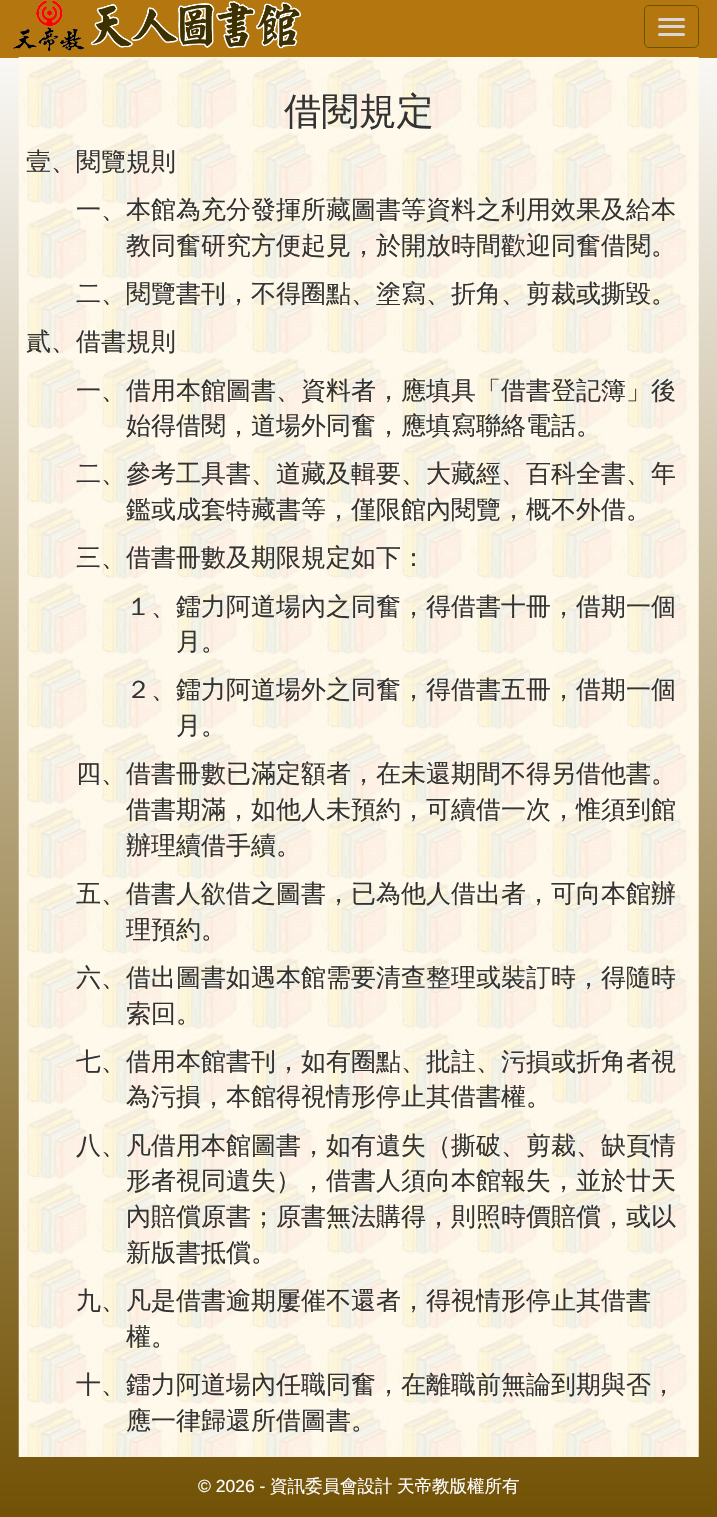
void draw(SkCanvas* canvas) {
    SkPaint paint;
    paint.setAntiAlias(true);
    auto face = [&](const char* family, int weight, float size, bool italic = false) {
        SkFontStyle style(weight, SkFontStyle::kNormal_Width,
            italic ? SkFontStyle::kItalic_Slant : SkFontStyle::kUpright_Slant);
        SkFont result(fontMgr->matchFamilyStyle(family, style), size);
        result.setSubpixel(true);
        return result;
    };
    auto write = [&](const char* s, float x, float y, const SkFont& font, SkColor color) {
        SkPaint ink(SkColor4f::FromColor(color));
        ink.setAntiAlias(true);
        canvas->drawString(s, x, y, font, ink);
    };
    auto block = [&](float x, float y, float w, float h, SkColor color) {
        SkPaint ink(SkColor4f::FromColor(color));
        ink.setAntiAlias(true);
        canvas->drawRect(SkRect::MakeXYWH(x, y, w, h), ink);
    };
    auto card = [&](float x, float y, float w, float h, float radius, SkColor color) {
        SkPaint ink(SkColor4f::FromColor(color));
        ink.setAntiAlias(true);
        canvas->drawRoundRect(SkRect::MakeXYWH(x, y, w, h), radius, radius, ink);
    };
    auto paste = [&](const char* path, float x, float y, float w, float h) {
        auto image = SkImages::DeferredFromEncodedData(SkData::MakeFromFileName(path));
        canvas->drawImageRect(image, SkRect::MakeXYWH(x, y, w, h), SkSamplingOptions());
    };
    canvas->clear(SK_ColorWHITE);
    {
        const SkColor colors[] = {SK_ColorWHITE, SkColorSetRGB(113, 81, 4)};
        const float stops[] = {0, 1};
        const SkPoint ends[] = {{359, -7.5f}, {359, 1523}};
        paint.setShader(SkGradientShader::MakeLinear(ends, colors, stops, 2, SkTileMode::kClamp));
        paint.setAlpha(255);
    }
    canvas->drawRect(SkRect::MakeXYWH(0, 58, 717, 1459), paint);
    block(0, 0, 717, 58, SkColorSetRGB(180, 118, 15));
    paste("pic1.png", 12, 0, 289, 52);
    paint.setStyle(SkPaint::kStroke_Style);
    paint.setStrokeWidth(1);
    paint.setShader(nullptr);
    paint.setColor(SkColorSetRGB(106, 84, 0));
    canvas->drawRoundRect(SkRect::MakeXYWH(644.5f, 5.5f, 54, 42), 4.5f, 4.5f, paint);
    card(658, 18, 27, 3, 1.5f, SkColorSetRGB(215, 215, 217));
    card(658, 25, 27, 3, 1.5f, SkColorSetRGB(215, 215, 217));
    card(658, 33, 27, 3, 1.5f, SkColorSetRGB(215, 215, 217));
    paste("pic2.png", 18, 57, 681, 1400);
    auto kFont1 = face("WenQuanYi Zen Hei", 500, 37.5f);
    write("借閱規定", 284, 124, kFont1, SkColorSetRGB(51, 51, 51));
    auto kFont2 = face("WenQuanYi Zen Hei", 500, 25);
    write("壹、閱覽規則", 26, 170, kFont2, SkColorSetRGB(51, 51, 51));
    write("一、本館為充分發揮所藏圖書等資料之利用效果及給本", 76, 218, kFont2, SkColorSetRGB(51, 51, 51));
    write("教同奮研究方便起見，於開放時間歡迎同奮借閱。", 126, 254, kFont2, SkColorSetRGB(51, 51, 51));
    write("二、閱覽書刊，不得圈點、塗寫、折角、剪裁或撕毀。", 76, 302, kFont2, SkColorSetRGB(51, 51, 51));
    write("貳、借書規則", 26, 350, kFont2, SkColorSetRGB(51, 51, 51));
    write("一、借用本館圖書、資料者，應填具「借書登記簿」後", 76, 399, kFont2, SkColorSetRGB(51, 51, 51));
    write("始得借閱，道場外同奮，應填寫聯絡電話。", 126, 434, kFont2, SkColorSetRGB(51, 51, 51));
    write("二、參考工具書、道藏及輯要、大藏經、百科全書、年", 76, 482, kFont2, SkColorSetRGB(51, 51, 51));
    write("鑑或成套特藏書等，僅限館內閱覽，概不外借。", 126, 518, kFont2, SkColorSetRGB(51, 51, 51));
    write("三、借書冊數及期限規定如下：", 76, 566, kFont2, SkColorSetRGB(51, 51, 51));
    write("１、鐳力阿道場內之同奮，得借書十冊，借期一個", 126, 615, kFont2, SkColorSetRGB(51, 51, 51));
    write("月。", 176, 650, kFont2, SkColorSetRGB(51, 51, 51));
    write("２、鐳力阿道場外之同奮，得借書五冊，借期一個", 126, 698, kFont2, SkColorSetRGB(51, 51, 51));
    write("月。", 176, 734, kFont2, SkColorSetRGB(51, 51, 51));
    write("四、借書冊數已滿定額者，在未還期間不得另借他書。", 76, 782, kFont2, SkColorSetRGB(51, 51, 51));
    write("借書期滿，如他人未預約，可續借一次，惟須到館", 126, 818, kFont2, SkColorSetRGB(51, 51, 51));
    write("辦理續借手續。", 126, 854, kFont2, SkColorSetRGB(51, 51, 51));
    write("五、借書人欲借之圖書，已為他人借出者，可向本館辦", 76, 902, kFont2, SkColorSetRGB(51, 51, 51));
    write("理預約。", 126, 938, kFont2, SkColorSetRGB(51, 51, 51));
    write("六、借出圖書如遇本館需要清查整理或裝訂時，得隨時", 76, 986, kFont2, SkColorSetRGB(51, 51, 51));
    write("索回。", 126, 1022, kFont2, SkColorSetRGB(51, 51, 51));
    write("七、借用本館書刊，如有圈點、批註、污損或折角者視", 76, 1070, kFont2, SkColorSetRGB(51, 51, 51));
    write("為污損，本館得視情形停止其借書權。", 126, 1105, kFont2, SkColorSetRGB(51, 51, 51));
    write("八、凡借用本館圖書，如有遺失（撕破、剪裁、缺頁情", 76, 1154, kFont2, SkColorSetRGB(51, 51, 51));
    write("形者視同遺失），借書人須向本館報失，並於廿天", 126, 1189, kFont2, SkColorSetRGB(51, 51, 51));
    write("內賠償原書；原書無法購得，則照時價賠償，或以", 126, 1225, kFont2, SkColorSetRGB(51, 51, 51));
    write("新版書抵償。", 126, 1261, kFont2, SkColorSetRGB(51, 51, 51));
    write("九、凡是借書逾期屢催不還者，得視情形停止其借書", 76, 1309, kFont2, SkColorSetRGB(51, 51, 51));
    write("權。", 126, 1345, kFont2, SkColorSetRGB(51, 51, 51));
    write("十、鐳力阿道場內任職同奮，在離職前無論到期與否，", 76, 1393, kFont2, SkColorSetRGB(51, 51, 51));
    write("應一律歸還所借圖書。", 126, 1429, kFont2, SkColorSetRGB(51, 51, 51));
    auto kFont3 = face("Liberation Sans", 400, 17.5f);
    write("© 2026 -", 198, 1492, kFont3, SK_ColorWHITE);
    auto kFont4 = face("WenQuanYi Zen Hei", 500, 17.5f);
    write("資訊委員會設計", 270, 1492, kFont4, SK_ColorWHITE);
    write("天帝教版權所有", 397, 1492, kFont4, SK_ColorWHITE);
}
